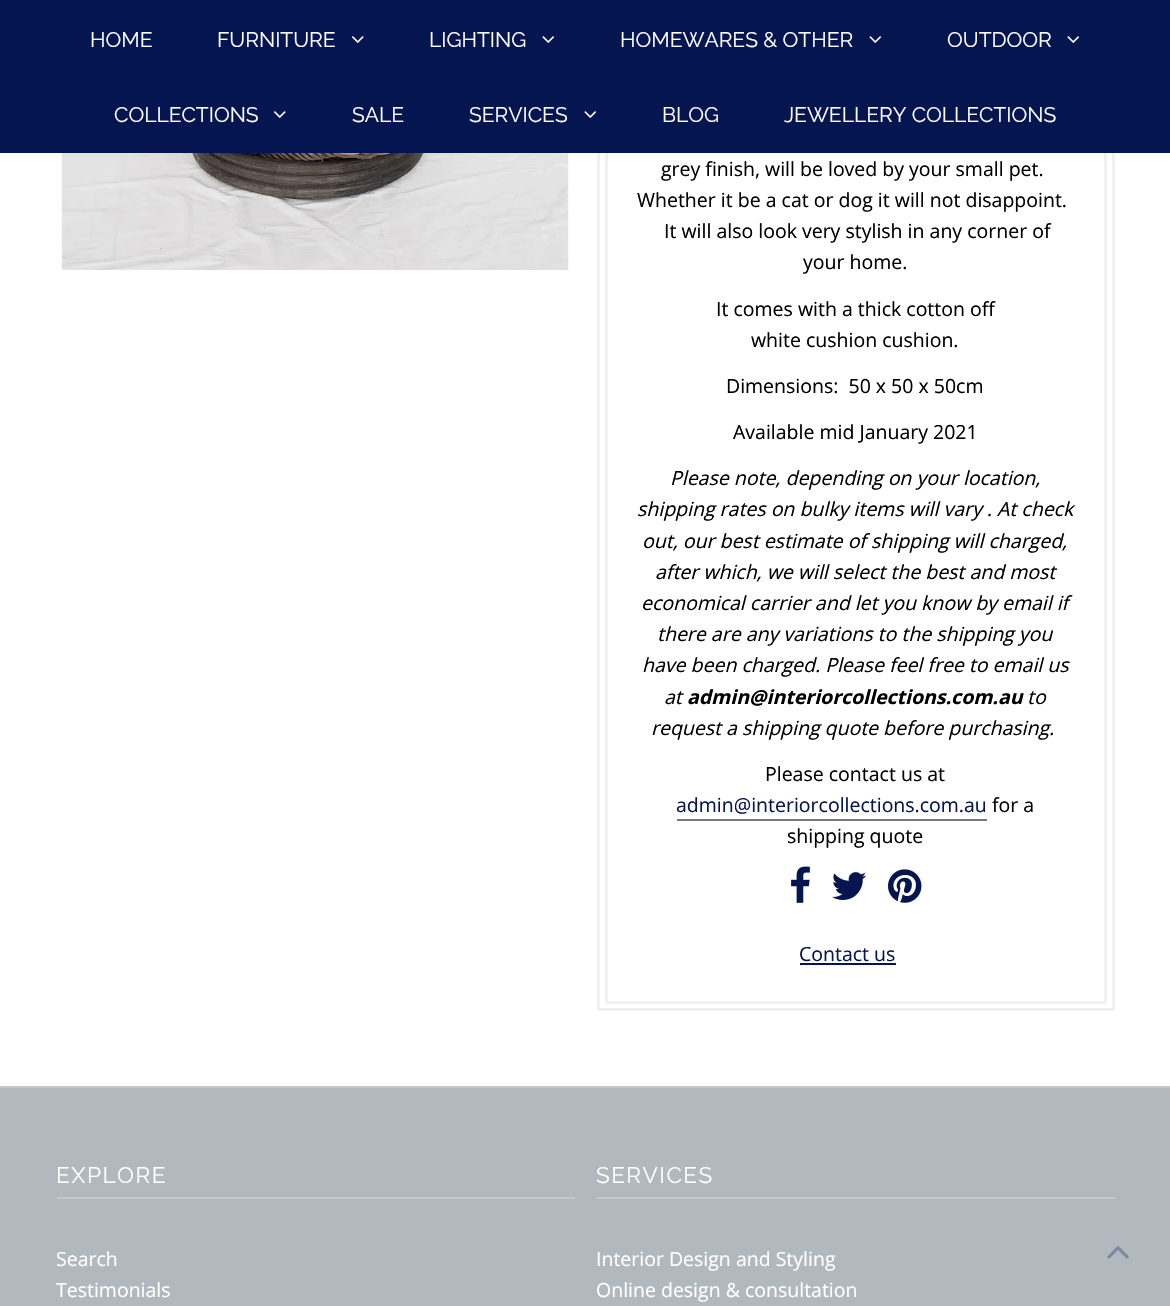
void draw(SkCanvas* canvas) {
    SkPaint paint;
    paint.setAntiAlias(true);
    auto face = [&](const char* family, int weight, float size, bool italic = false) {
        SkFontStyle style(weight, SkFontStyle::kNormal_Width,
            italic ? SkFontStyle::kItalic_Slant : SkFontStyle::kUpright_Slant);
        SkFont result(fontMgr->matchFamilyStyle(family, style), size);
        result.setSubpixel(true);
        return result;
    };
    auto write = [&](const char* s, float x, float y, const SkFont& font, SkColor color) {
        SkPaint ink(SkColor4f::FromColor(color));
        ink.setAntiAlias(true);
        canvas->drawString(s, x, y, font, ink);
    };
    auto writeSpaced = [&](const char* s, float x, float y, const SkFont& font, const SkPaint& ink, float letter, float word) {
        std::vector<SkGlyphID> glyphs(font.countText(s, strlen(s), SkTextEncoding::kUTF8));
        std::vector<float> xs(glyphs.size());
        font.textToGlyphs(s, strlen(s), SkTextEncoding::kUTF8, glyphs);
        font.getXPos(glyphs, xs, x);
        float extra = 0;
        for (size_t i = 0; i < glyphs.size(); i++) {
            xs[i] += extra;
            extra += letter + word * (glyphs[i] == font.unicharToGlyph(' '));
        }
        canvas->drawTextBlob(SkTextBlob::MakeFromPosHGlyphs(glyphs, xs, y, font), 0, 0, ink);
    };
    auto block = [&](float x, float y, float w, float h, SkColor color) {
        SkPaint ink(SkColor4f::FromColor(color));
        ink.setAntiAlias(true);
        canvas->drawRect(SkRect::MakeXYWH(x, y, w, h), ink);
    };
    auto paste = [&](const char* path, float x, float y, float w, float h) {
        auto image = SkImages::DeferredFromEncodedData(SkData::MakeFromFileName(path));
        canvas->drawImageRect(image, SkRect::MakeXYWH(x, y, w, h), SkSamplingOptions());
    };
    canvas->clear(SK_ColorWHITE);
    paint.setStyle(SkPaint::kStroke_Style);
    paint.setStrokeWidth(3);
    paint.setColor(SkColorSetRGB(240, 240, 240));
    canvas->drawRect(SkRect::MakeXYWH(598.5f, -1.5f, 515, 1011), paint);
    canvas->drawRect(SkRect::MakeXYWH(606.5f, -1.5f, 499, 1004), paint);
    block(0, 0, 1170, 153, SkColorSetRGB(5, 21, 80));
    auto kFont1 = face("Raleway", 400, 21);
    write("HOME", 90, 47, kFont1, SK_ColorWHITE);
    write("FURNITURE", 217, 47, kFont1, SK_ColorWHITE);
    paste("pic1.png", 352, 36, 12, 7);
    write("LIGHTING", 429, 47, kFont1, SK_ColorWHITE);
    paste("pic2.png", 542, 36, 12, 7);
    write("HOMEWARES & OTHER", 620, 47, kFont1, SK_ColorWHITE);
    paste("pic2.png", 869, 36, 12, 7);
    write("OUTDOOR", 947, 47, kFont1, SK_ColorWHITE);
    paste("pic2.png", 1067, 36, 12, 7);
    write("COLLECTIONS", 114, 122, kFont1, SK_ColorWHITE);
    paste("pic1.png", 274, 111, 12, 7);
    write("SALE", 352, 122, kFont1, SK_ColorWHITE);
    write("SERVICES", 469, 122, kFont1, SK_ColorWHITE);
    paste("pic2.png", 584, 111, 12, 7);
    write("BLOG", 662, 122, kFont1, SK_ColorWHITE);
    write("JEWELLERY COLLECTIONS", 784, 122, kFont1, SK_ColorWHITE);
    paste("pic3.png", 61, 153, 508, 117);
    auto kFont2 = face("Open Sans", 400, 19.5f);
    write("grey finish, will be loved by your small pet.", 661, 176, kFont2, SK_ColorBLACK);
    write("Whether it be a cat or dog it will not disappoint.", 637, 207, kFont2, SK_ColorBLACK);
    write("It will also look very stylish in any corner of", 664, 238, kFont2, SK_ColorBLACK);
    write("your home.", 803, 269, kFont2, SK_ColorBLACK);
    write("It comes with a thick cotton off", 716, 316, kFont2, SK_ColorBLACK);
    write("white cushion cushion.", 751, 347, kFont2, SK_ColorBLACK);
    write("Dimensions:  50 x 50 x 50cm", 726, 393, kFont2, SK_ColorBLACK);
    write("Available mid January 2021", 733, 439, kFont2, SK_ColorBLACK);
    auto kFont3 = face("Open Sans", 400, 19.5f, true);
    write("Please note, depending on your location,", 670, 485, kFont3, SK_ColorBLACK);
    write("shipping rates on bulky items will vary . At check", 637, 516, kFont3, SK_ColorBLACK);
    write("out, our best estimate of shipping will charged,", 642, 548, kFont3, SK_ColorBLACK);
    write("after which, we will select the best and most", 655, 579, kFont3, SK_ColorBLACK);
    write("economical carrier and let you know by email if", 641, 610, kFont3, SK_ColorBLACK);
    write("there are any variations to the shipping you", 657, 641, kFont3, SK_ColorBLACK);
    write("have been charged. Please feel free to email us", 642, 672, kFont3, SK_ColorBLACK);
    write("at", 664, 704, kFont3, SK_ColorBLACK);
    auto kFont4 = face("Open Sans", 700, 19.5f, true);
    write("admin@interiorcollections.com.au", 687, 704, kFont4, SK_ColorBLACK);
    write("to", 1027, 704, kFont3, SK_ColorBLACK);
    write("request a shipping quote before purchasing.", 651, 735, kFont3, SK_ColorBLACK);
    write("Please contact us at", 765, 781, kFont2, SK_ColorBLACK);
    write("admin@interiorcollections.com.au", 676, 812, kFont2, SkColorSetRGB(5, 21, 80));
    block(677, 819, 310, 2, SkColorSetRGB(119, 119, 119));
    write("for a", 992, 812, kFont2, SK_ColorBLACK);
    write("shipping quote", 787, 843, kFont2, SK_ColorBLACK);
    paste("pic4.png", 791, 866, 19, 37);
    paste("pic5.png", 832, 872, 35, 28);
    paste("pic6.png", 888, 869, 34, 34);
    write("Contact us", 799, 961, kFont2, SkColorSetRGB(5, 21, 80));
    block(800, 963, 96, 2, SkColorSetRGB(5, 21, 80));
    block(0, 1088, 1170, 218, SkColorSetRGB(177, 184, 190));
    block(0, 1086, 1170, 2, SkColorSetRGB(196, 201, 204));
    block(57, 1197, 518, 2, SkColorSetRGB(196, 201, 204));
    auto kFont5 = face("Raleway", 400, 22.5f);
    paint.setStyle(SkPaint::kFill_Style);
    paint.setColor(SK_ColorWHITE);
    writeSpaced("EXPLORE", 56, 1183, kFont5, paint, 1.5f, 0);
    write("Search", 56, 1266, kFont2, SK_ColorWHITE);
    write("Testimonials", 56, 1297, kFont2, SK_ColorWHITE);
    block(597, 1197, 518, 2, SkColorSetRGB(196, 201, 204));
    writeSpaced("SERVICES", 596, 1183, kFont5, paint, 1.5f, 0);
    write("Interior Design and Styling", 596, 1266, kFont2, SK_ColorWHITE);
    write("Online design & consultation", 596, 1297, kFont2, SK_ColorWHITE);
    paste("pic7.png", 1107, 1246, 22, 13);
}
